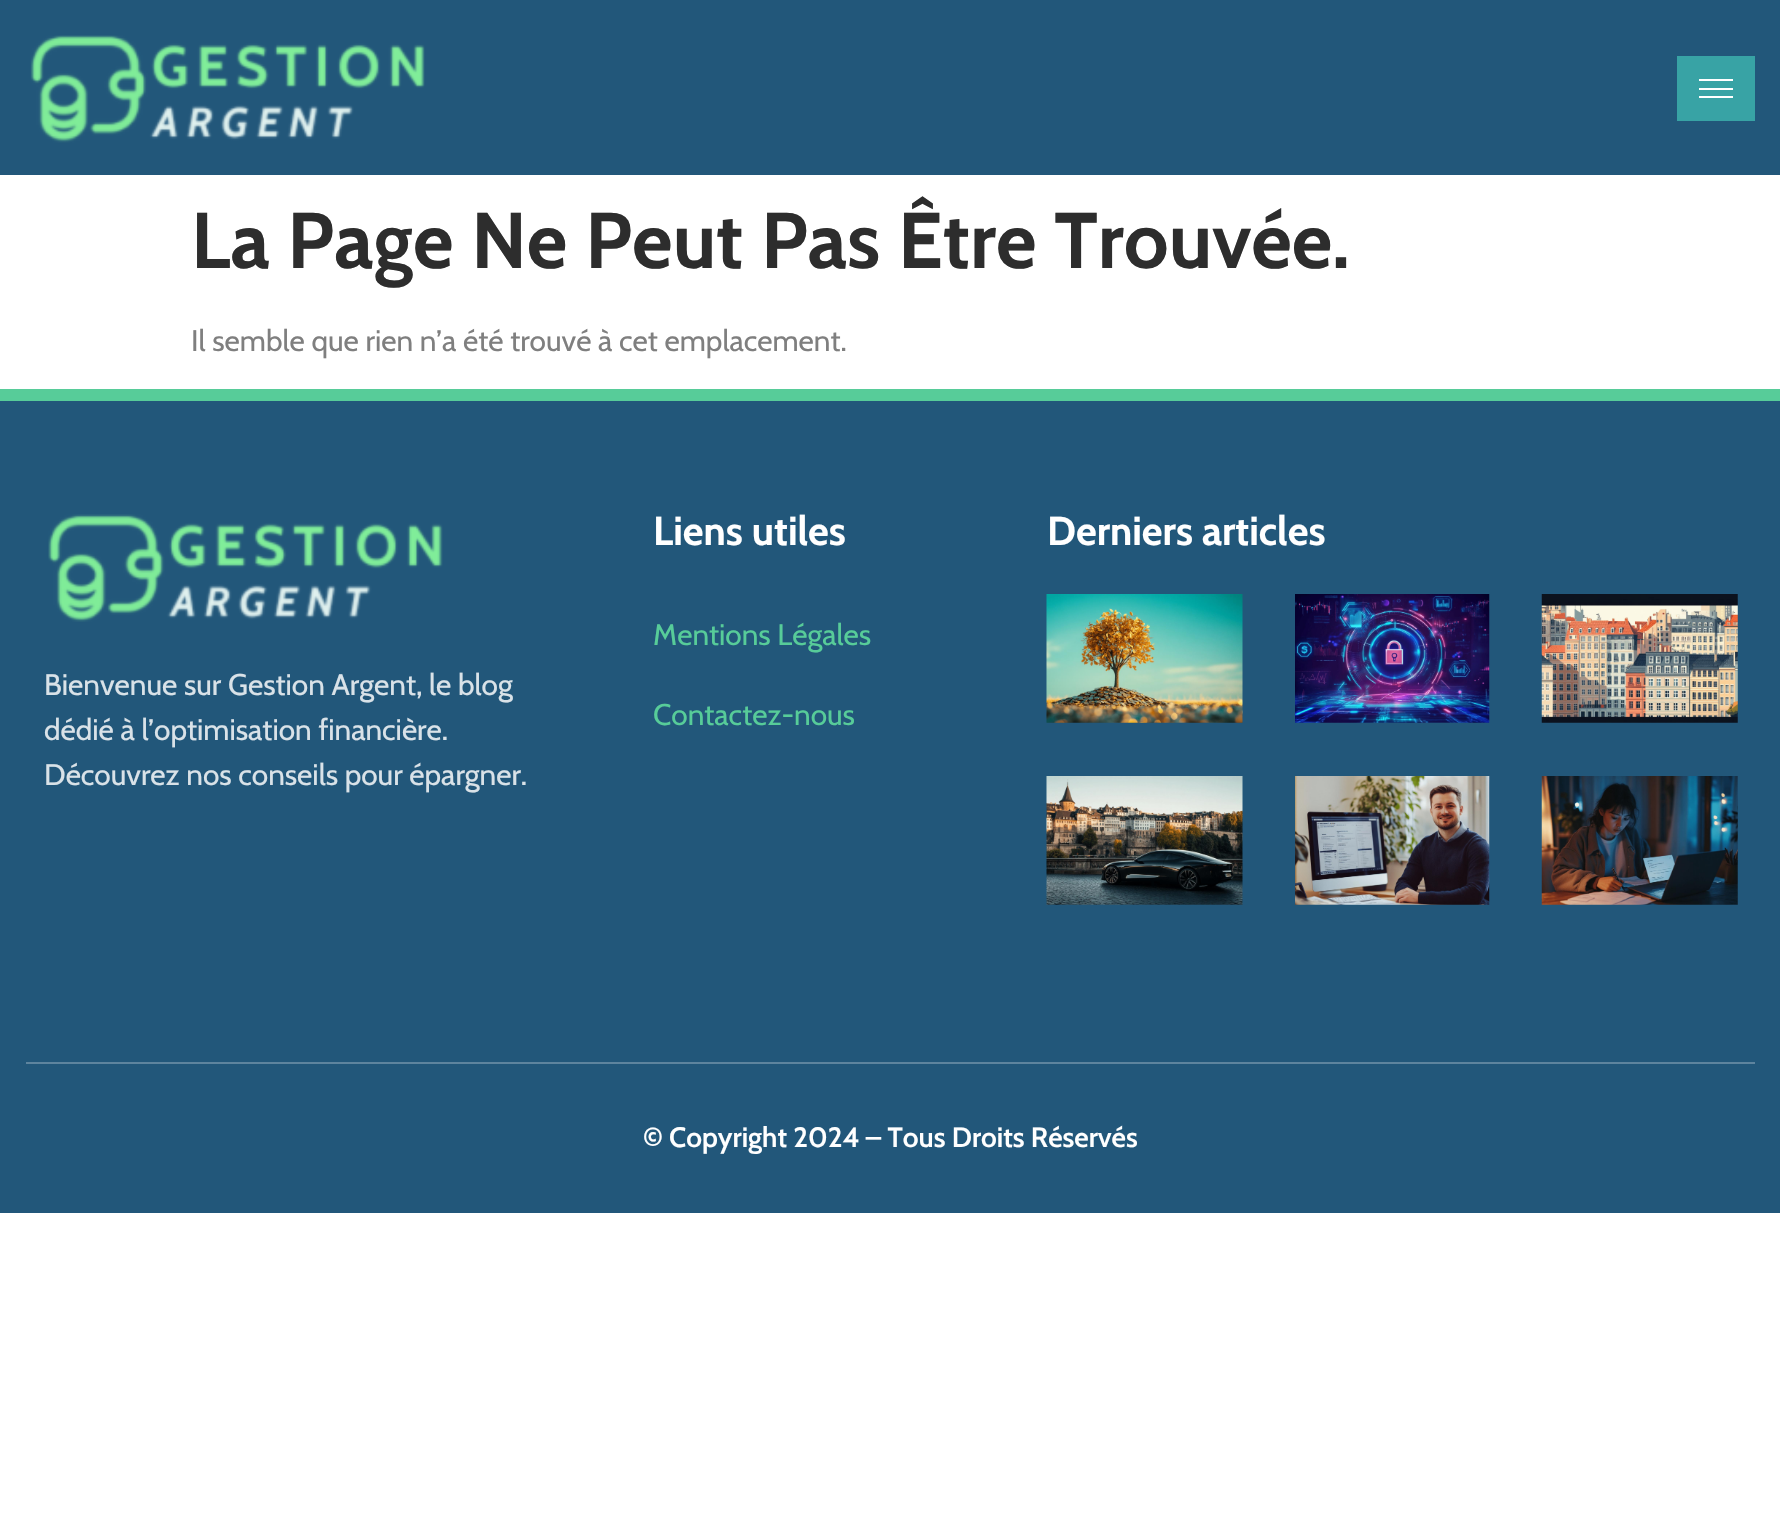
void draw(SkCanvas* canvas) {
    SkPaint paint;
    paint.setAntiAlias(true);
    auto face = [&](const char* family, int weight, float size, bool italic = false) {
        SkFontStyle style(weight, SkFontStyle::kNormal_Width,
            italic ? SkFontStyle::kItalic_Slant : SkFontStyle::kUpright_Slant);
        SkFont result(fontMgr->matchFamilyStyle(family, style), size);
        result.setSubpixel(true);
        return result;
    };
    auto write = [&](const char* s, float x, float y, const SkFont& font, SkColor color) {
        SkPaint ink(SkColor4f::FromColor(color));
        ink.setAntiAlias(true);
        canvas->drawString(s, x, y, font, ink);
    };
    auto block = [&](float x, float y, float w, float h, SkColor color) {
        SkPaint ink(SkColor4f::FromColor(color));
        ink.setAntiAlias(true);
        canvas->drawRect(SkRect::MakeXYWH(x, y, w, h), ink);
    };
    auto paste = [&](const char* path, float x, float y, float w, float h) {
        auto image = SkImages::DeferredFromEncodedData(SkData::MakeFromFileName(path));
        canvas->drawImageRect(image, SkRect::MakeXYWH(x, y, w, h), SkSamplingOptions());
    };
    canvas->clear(SK_ColorWHITE);
    block(0, 0, 1780, 175, SkColorSetRGB(34, 87, 122));
    paste("pic1.png", 30, 35, 395, 108);
    block(1677, 56, 78, 65, SkColorSetRGB(56, 163, 165));
    block(1699, 79, 34, 2, SK_ColorWHITE);
    block(1699, 88, 34, 2, SK_ColorWHITE);
    block(1699, 96, 34, 2, SK_ColorWHITE);
    auto kFont1 = face("Cabin", 700, 78.75f);
    write("La Page Ne Peut Pas Être Trouvée.", 191, 268, kFont1, SkColorSetRGB(45, 45, 45));
    auto kFont2 = face("Cabin", 400, 29.75f);
    write("Il semble que rien n’a été trouvé à cet emplacement.", 191, 351, kFont2, SkColorSetRGB(127, 127, 127));
    block(0, 401, 1780, 812, SkColorSetRGB(34, 87, 122));
    block(0, 389, 1780, 12, SkColorSetRGB(87, 204, 153));
    auto kFont3 = face("Cabin", 700, 40.25f);
    write("Liens utiles", 653, 545, kFont3, SK_ColorWHITE);
    write("Mentions Légales", 653, 645, kFont2, SkColorSetRGB(87, 204, 153));
    write("Contactez-nous", 653, 725, kFont2, SkColorSetRGB(87, 204, 153));
    write("Derniers articles", 1047, 545, kFont3, SK_ColorWHITE);
    paste("pic2.png", 1046, 594, 197, 129);
    paste("pic3.png", 1295, 594, 195, 129);
    paste("pic4.png", 1541, 594, 197, 129);
    paste("pic5.png", 1046, 776, 197, 129);
    paste("pic6.png", 1295, 776, 195, 129);
    paste("pic7.png", 1541, 776, 197, 129);
    paste("pic8.png", 48, 514, 395, 108);
    write("Bienvenue sur Gestion Argent, le blog", 44, 695, kFont2, SkColorSetRGB(217, 226, 232));
    write("dédié à l’optimisation financière.", 44, 740, kFont2, SkColorSetRGB(217, 226, 232));
    write("Découvrez nos conseils pour épargner.", 44, 785, kFont2, SkColorSetRGB(217, 226, 232));
    block(26, 1062, 1729, 2, SkColorSetRGB(94, 132, 158));
    auto kFont4 = face("Cabin", 600, 28);
    write("© Copyright 2024 – Tous Droits Réservés", 643, 1147, kFont4, SK_ColorWHITE);
}
